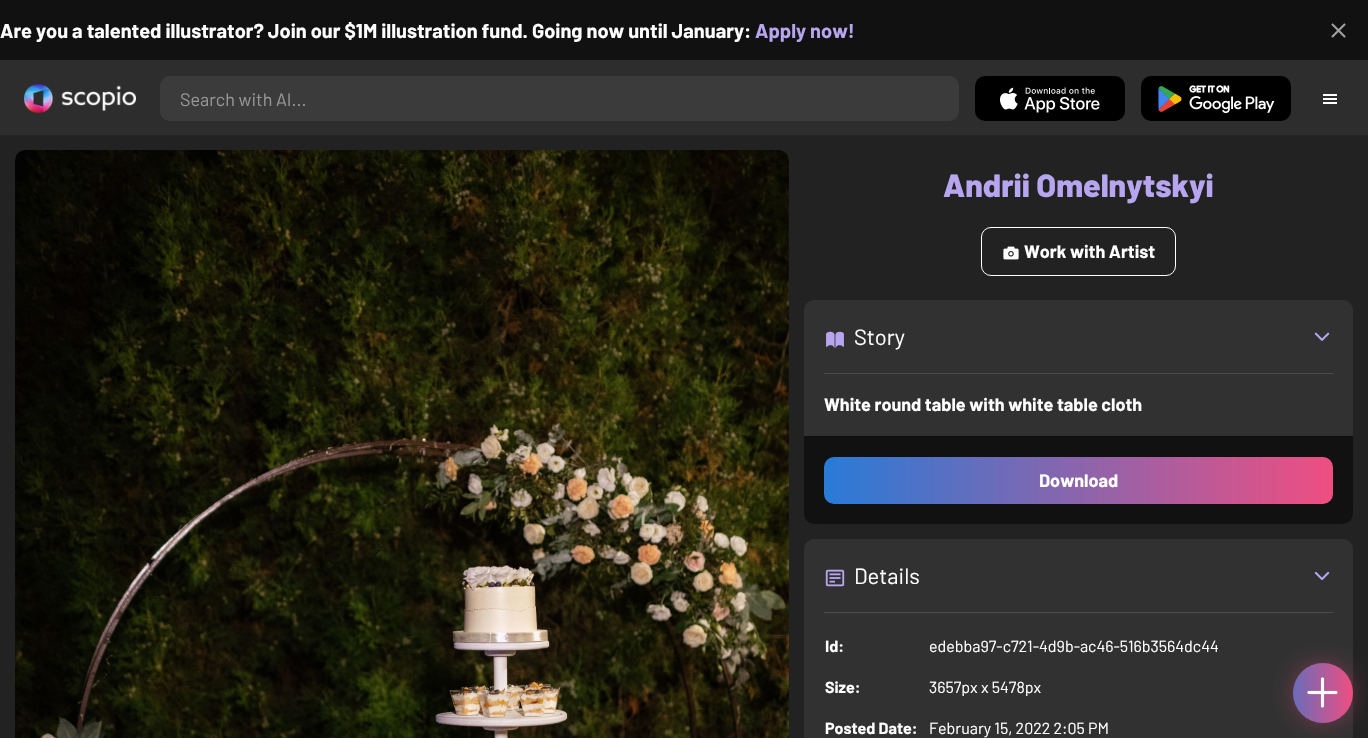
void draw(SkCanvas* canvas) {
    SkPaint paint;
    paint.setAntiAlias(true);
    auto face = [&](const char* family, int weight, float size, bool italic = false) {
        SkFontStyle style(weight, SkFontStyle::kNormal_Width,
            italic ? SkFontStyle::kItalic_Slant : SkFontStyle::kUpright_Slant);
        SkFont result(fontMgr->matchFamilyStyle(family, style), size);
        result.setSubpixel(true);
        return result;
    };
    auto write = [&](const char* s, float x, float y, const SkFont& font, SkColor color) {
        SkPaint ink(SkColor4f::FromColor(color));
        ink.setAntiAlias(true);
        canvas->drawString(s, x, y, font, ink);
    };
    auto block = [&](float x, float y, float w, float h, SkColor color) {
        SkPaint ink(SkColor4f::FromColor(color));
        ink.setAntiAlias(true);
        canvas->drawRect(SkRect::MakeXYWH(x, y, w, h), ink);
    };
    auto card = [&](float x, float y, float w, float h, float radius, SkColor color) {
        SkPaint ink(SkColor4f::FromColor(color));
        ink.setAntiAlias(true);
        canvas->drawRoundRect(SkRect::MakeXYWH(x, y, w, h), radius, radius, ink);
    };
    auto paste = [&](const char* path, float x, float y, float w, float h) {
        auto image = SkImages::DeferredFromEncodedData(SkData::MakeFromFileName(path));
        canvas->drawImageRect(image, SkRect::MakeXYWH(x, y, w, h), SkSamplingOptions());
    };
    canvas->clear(SkColorSetRGB(34, 34, 34));
    block(0, 0, 1368, 60, SkColorSetRGB(17, 17, 17));
    auto kFont1 = face("Barlow", 700, 20);
    write("Are you a talented illustrator? Join our $1M illustration fund. Going now until January:", 0, 38, kFont1, SK_ColorWHITE);
    write("Apply now!", 755, 38, kFont1, SkColorSetRGB(183, 165, 239));
    paste("pic1.png", 1331, 23, 15, 15);
    card(15, 150, 774, 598, 10, SkColorSetRGB(49, 49, 49));
    paste("pic2.png", 15, 150, 774, 588);
    auto kFont2 = face("Barlow", 800, 32);
    write("Andrii Omelnytskyi", 943, 197, kFont2, SkColorSetRGB(183, 165, 239));
    paint.setStyle(SkPaint::kStroke_Style);
    paint.setStrokeWidth(1);
    paint.setColor(SK_ColorWHITE);
    canvas->drawRoundRect(SkRect::MakeXYWH(981.5f, 227.5f, 194, 48), 9.5f, 9.5f, paint);
    paste("pic3.png", 1003, 246, 16, 14);
    auto kFont3 = face("Barlow", 700, 18);
    write("Work with Artist", 1024, 258, kFont3, SK_ColorWHITE);
    paint.setStyle(SkPaint::kFill_Style);
    paint.setColor(SK_ColorBLACK);
    paint.setMaskFilter(SkMaskFilter::MakeBlur(kNormal_SkBlurStyle, 6));
    canvas->drawRect(SkRect::MakeXYWH(815, 313, 527, 202), paint);
    paint.setMaskFilter(nullptr);
    card(804, 300, 549, 224, 10, SkColorSetRGB(49, 49, 49));
    block(824, 373, 509, 1, SkColorSetRGB(76, 76, 76));
    paste("pic4.png", 826, 331, 18, 18);
    auto kFont4 = face("Barlow", 400, 22);
    write("Story", 854, 345, kFont4, SK_ColorWHITE);
    paste("pic5.png", 1314, 332, 16, 9);
    write("White round table with white table cloth", 824, 411, kFont3, SK_ColorWHITE);
    paint.setColor(SkColorSetRGB(17, 17, 17));
    canvas->drawPath(SkPathBuilder().moveTo(804, 436).lineTo(1353, 436).lineTo(1353, 514).cubicTo(1353, 519.5f, 1348.5f, 524, 1343, 524).lineTo(814, 524).cubicTo(808.5f, 524, 804, 519.5f, 804, 514).close().detach(), paint);
    block(804, 436, 549, 1, SkColorSetRGB(14, 14, 14));
    {
        const SkColor colors[] = {SkColorSetRGB(40, 123, 215), SkColorSetRGB(239, 78, 129)};
        const float stops[] = {0, 1};
        const SkPoint ends[] = {{824, 481}, {1333, 481}};
        paint.setShader(SkGradientShader::MakeLinear(ends, colors, stops, 2, SkTileMode::kClamp));
        paint.setAlpha(255);
    }
    canvas->drawRoundRect(SkRect::MakeXYWH(824, 457, 509, 47), 10, 10, paint);
    write("Download", 1039, 487, kFont3, SK_ColorWHITE);
    card(804, 539, 549, 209, 10, SkColorSetRGB(49, 49, 49));
    block(824, 612, 509, 1, SkColorSetRGB(76, 76, 76));
    paste("pic6.png", 825, 569, 20, 18);
    write("Details", 854, 584, kFont4, SK_ColorWHITE);
    paste("pic7.png", 1314, 571, 16, 9);
    auto kFont5 = face("Barlow", 700, 16);
    write("Id:", 825, 652, kFont5, SK_ColorWHITE);
    auto kFont6 = face("Barlow", 400, 16);
    write("edebba97-c721-4d9b-ac46-516b3564dc44", 929, 652, kFont6, SK_ColorWHITE);
    write("Size:", 825, 693, kFont5, SK_ColorWHITE);
    write("3657px x 5478px", 929, 693, kFont6, SK_ColorWHITE);
    write("Posted Date:", 825, 734, kFont5, SK_ColorWHITE);
    write("February 15, 2022 2:05 PM", 929, 734, kFont6, SK_ColorWHITE);
    block(0, 60, 1368, 75, SkColorSetRGB(45, 45, 45));
    paste("pic8.png", 24, 84, 112, 29);
    card(160, 76, 799, 45, 10, SkColorSetRGB(59, 59, 59));
    auto kFont7 = face("Barlow", 400, 18);
    write("Search with AI...", 180, 106, kFont7, SkColorSetRGB(151, 151, 151));
    card(975, 76, 150, 45, 10, SK_ColorBLACK);
    paste("pic9.png", 1000, 87, 100, 26);
    card(1141, 76, 150, 45, 10, SK_ColorBLACK);
    paste("pic10.png", 1158, 85, 117, 29);
    paste("pic11.png", 1323, 94, 14, 10);
    paint.setShader(nullptr);
    paint.setColor(SkColorSetRGB(239, 78, 129));
    paint.setMaskFilter(SkMaskFilter::MakeBlur(kNormal_SkBlurStyle, 15));
    canvas->drawRoundRect(SkRect::MakeXYWH(1303, 673, 40, 40), 20, 20, paint);
    paint.setMaskFilter(nullptr);
    {
        const SkColor colors[] = {SkColorSetRGB(40, 123, 215), SkColorSetRGB(239, 78, 129)};
        const float stops[] = {0, 1};
        const SkPoint ends[] = {{1263, 693}, {1353, 693}};
        paint.setShader(SkGradientShader::MakeLinear(ends, colors, stops, 2, SkTileMode::kClamp));
        paint.setAlpha(255);
    }
    canvas->drawCircle(1323, 693, 30, paint);
    paste("pic12.png", 1307, 677, 31, 31);
}
